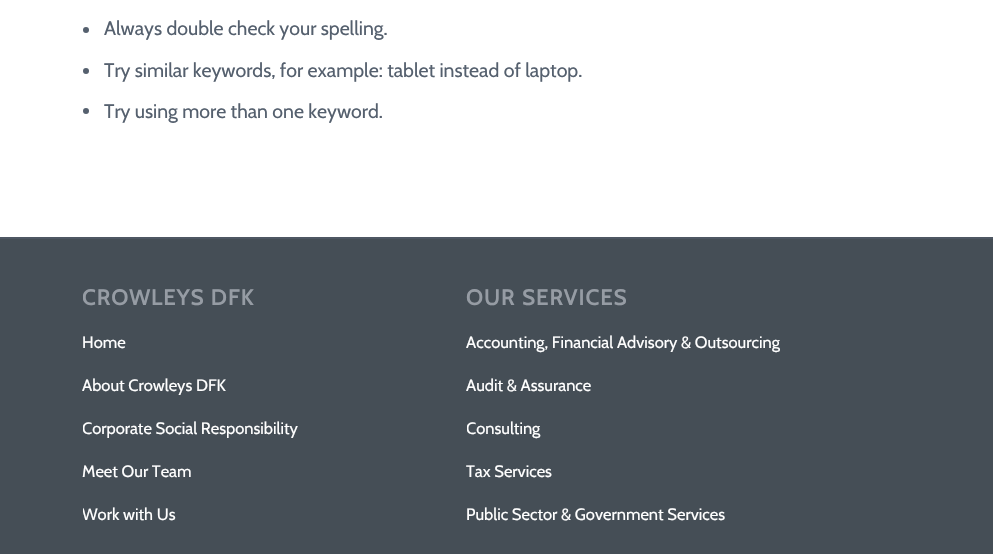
void draw(SkCanvas* canvas) {
    SkPaint paint;
    paint.setAntiAlias(true);
    auto face = [&](const char* family, int weight, float size, bool italic = false) {
        SkFontStyle style(weight, SkFontStyle::kNormal_Width,
            italic ? SkFontStyle::kItalic_Slant : SkFontStyle::kUpright_Slant);
        SkFont result(fontMgr->matchFamilyStyle(family, style), size);
        result.setSubpixel(true);
        return result;
    };
    auto write = [&](const char* s, float x, float y, const SkFont& font, SkColor color) {
        SkPaint ink(SkColor4f::FromColor(color));
        ink.setAntiAlias(true);
        canvas->drawString(s, x, y, font, ink);
    };
    auto writeSpaced = [&](const char* s, float x, float y, const SkFont& font, const SkPaint& ink, float letter, float word) {
        std::vector<SkGlyphID> glyphs(font.countText(s, strlen(s), SkTextEncoding::kUTF8));
        std::vector<float> xs(glyphs.size());
        font.textToGlyphs(s, strlen(s), SkTextEncoding::kUTF8, glyphs);
        font.getXPos(glyphs, xs, x);
        float extra = 0;
        for (size_t i = 0; i < glyphs.size(); i++) {
            xs[i] += extra;
            extra += letter + word * (glyphs[i] == font.unicharToGlyph(' '));
        }
        canvas->drawTextBlob(SkTextBlob::MakeFromPosHGlyphs(glyphs, xs, y, font), 0, 0, ink);
    };
    auto block = [&](float x, float y, float w, float h, SkColor color) {
        SkPaint ink(SkColor4f::FromColor(color));
        ink.setAntiAlias(true);
        canvas->drawRect(SkRect::MakeXYWH(x, y, w, h), ink);
    };
    canvas->clear(SK_ColorWHITE);
    paint.setColor(SkColorSetRGB(85, 96, 110));
    canvas->drawCircle(86, 30, 3, paint);
    auto kFont1 = face("Cabin", 400, 19.5f);
    write("Always double check your spelling.", 104, 35, kFont1, SkColorSetRGB(85, 96, 110));
    canvas->drawCircle(86, 71, 3, paint);
    write("Try similar keywords, for example: tablet instead of laptop.", 104, 77, kFont1, SkColorSetRGB(85, 96, 110));
    canvas->drawCircle(86, 111, 3, paint);
    write("Try using more than one keyword.", 104, 118, kFont1, SkColorSetRGB(85, 96, 110));
    block(0, 239, 993, 315, SkColorSetRGB(69, 78, 86));
    block(0, 237, 993, 2, SkColorSetRGB(78, 87, 99));
    canvas->save();
    canvas->clipRect(SkRect::MakeXYWH(83, 269, 369, 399));
    auto kFont2 = face("Cabin", 700, 21.5f);
    paint.setColor(SkColorSetRGB(150, 156, 164));
    writeSpaced("CROWLEYS DFK", 82, 305, kFont2, paint, 1.5f, 0);
    canvas->restore();
    auto kFont3 = face("Cabin", 400, 16.5f);
    write("Home", 82, 348, kFont3, SK_ColorWHITE);
    write("About Crowleys DFK", 82, 391, kFont3, SK_ColorWHITE);
    canvas->save();
    canvas->clipRect(SkRect::MakeXYWH(83, 269, 369, 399));
    write("Corporate Social Responsibility", 82, 434, kFont3, SK_ColorWHITE);
    canvas->restore();
    write("Meet Our Team", 82, 477, kFont3, SK_ColorWHITE);
    canvas->save();
    canvas->clipRect(SkRect::MakeXYWH(83, 269, 369, 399));
    write("Work with Us", 82, 520, kFont3, SK_ColorWHITE);
    canvas->restore();
    writeSpaced("OUR SERVICES", 466, 305, kFont2, paint, 1.5f, 0);
    write("Accounting, Financial Advisory & Outsourcing", 466, 348, kFont3, SK_ColorWHITE);
    write("Audit & Assurance", 466, 391, kFont3, SK_ColorWHITE);
    canvas->save();
    canvas->clipRect(SkRect::MakeXYWH(467, 269, 369, 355));
    write("Consulting", 466, 434, kFont3, SK_ColorWHITE);
    canvas->restore();
    write("Tax Services", 466, 477, kFont3, SK_ColorWHITE);
    write("Public Sector & Government Services", 466, 520, kFont3, SK_ColorWHITE);
}
